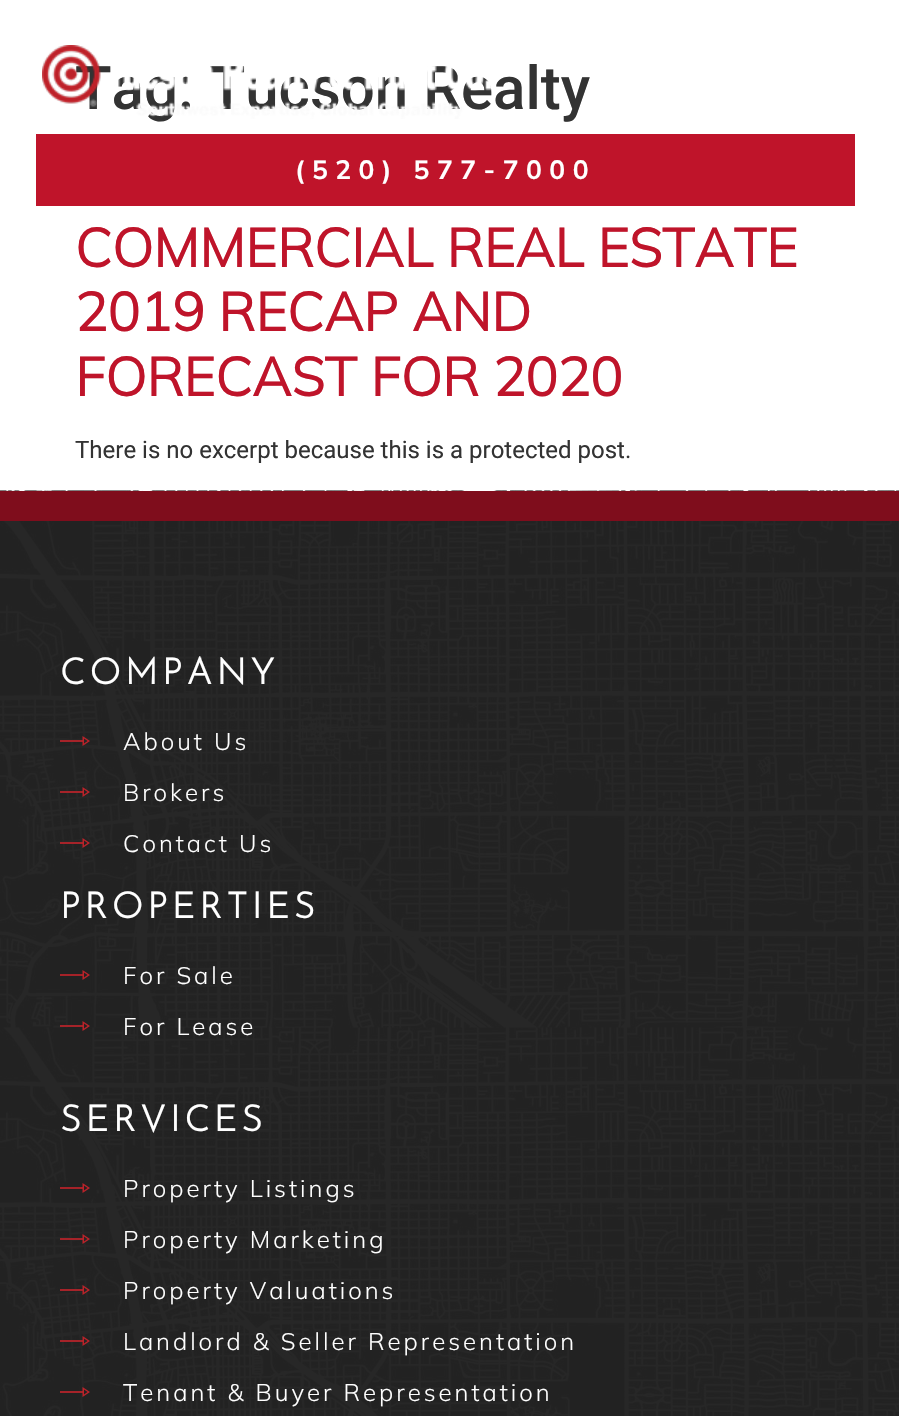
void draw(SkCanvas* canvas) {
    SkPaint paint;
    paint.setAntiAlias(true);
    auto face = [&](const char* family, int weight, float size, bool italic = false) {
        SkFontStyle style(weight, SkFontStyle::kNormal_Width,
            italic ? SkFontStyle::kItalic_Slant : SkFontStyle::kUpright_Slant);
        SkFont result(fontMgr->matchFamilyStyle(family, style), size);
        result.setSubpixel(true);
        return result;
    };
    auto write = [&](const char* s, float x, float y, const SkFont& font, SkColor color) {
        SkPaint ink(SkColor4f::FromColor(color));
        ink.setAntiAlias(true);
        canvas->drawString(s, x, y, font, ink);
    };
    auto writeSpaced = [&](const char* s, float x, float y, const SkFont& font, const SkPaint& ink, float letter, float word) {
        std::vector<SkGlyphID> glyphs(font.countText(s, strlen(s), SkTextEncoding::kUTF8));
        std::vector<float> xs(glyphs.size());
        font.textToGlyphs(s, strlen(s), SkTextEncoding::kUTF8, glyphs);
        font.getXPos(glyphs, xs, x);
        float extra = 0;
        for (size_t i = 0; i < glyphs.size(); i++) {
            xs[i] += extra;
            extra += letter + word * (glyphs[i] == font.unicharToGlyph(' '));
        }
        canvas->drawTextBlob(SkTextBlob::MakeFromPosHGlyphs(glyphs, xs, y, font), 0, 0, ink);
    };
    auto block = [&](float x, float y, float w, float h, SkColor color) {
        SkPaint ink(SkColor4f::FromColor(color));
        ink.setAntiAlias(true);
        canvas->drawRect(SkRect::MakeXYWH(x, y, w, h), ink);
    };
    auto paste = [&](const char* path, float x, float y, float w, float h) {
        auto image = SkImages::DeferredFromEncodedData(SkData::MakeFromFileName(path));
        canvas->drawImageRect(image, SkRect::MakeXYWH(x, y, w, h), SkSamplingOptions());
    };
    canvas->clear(SK_ColorWHITE);
    auto kFont1 = face("Roboto", 500, 60);
    write("Tag: Tucson Realty", 75, 109, kFont1, SkColorSetRGB(51, 51, 51));
    auto kFont2 = face("Mulish", 700, 54);
    write("COMMERCIAL REAL ESTATE", 75, 267, kFont2, SkColorSetRGB(191, 20, 42));
    write("2019 RECAP AND", 75, 331, kFont2, SkColorSetRGB(191, 20, 42));
    write("FORECAST FOR 2020", 75, 396, kFont2, SkColorSetRGB(191, 20, 42));
    auto kFont3 = face("Roboto", 400, 24);
    write("There is no excerpt because this is a protected post.", 75, 458, kFont3, SkColorSetRGB(51, 51, 51));
    paste("pic1.png", 42, 45, 449, 74);
    block(36, 134, 819, 72, SkColorSetRGB(191, 20, 42));
    auto kFont4 = face("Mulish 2", 700, 26.4f);
    paint.setColor(SK_ColorWHITE);
    writeSpaced("(520) 577-7000", 295, 179, kFont4, paint, 7.5f, 0);
    paste("pic2.png", 0, 490, 899, 926);
    block(0, 491, 899, 30, SkColorSetRGB(127, 13, 28));
    auto kFont5 = face("Josefin Sans", 700, 36);
    writeSpaced("COMPANY", 60, 684, kFont5, paint, 4.5f, 0);
    block(60, 740, 23, 2, SkColorSetARGB(217, 188, 34, 41));
    paint.setColor(SkColorSetRGB(188, 34, 41));
    canvas->drawPath(SkPathBuilder().moveTo(87.5f, 741).lineTo(84, 738.5f).lineTo(84, 743.5f).lineTo(87.5f, 741).moveTo(90, 741).lineTo(82.5f, 746).lineTo(82.5f, 736).close().detach(), paint);
    auto kFont6 = face("Mulish", 300, 24);
    paint.setColor(SK_ColorWHITE);
    writeSpaced("About Us", 123, 750, kFont6, paint, 3, 0);
    block(60, 791, 23, 2, SkColorSetARGB(217, 188, 34, 41));
    paint.setColor(SkColorSetRGB(188, 34, 41));
    canvas->drawPath(SkPathBuilder().moveTo(87.5f, 792).lineTo(84, 789.5f).lineTo(84, 794.5f).lineTo(87.5f, 792).moveTo(90, 792).lineTo(82.5f, 797).lineTo(82.5f, 787).close().detach(), paint);
    paint.setColor(SK_ColorWHITE);
    writeSpaced("Brokers", 123, 801, kFont6, paint, 3, 0);
    block(60, 842, 23, 2, SkColorSetARGB(217, 188, 34, 41));
    paint.setColor(SkColorSetRGB(188, 34, 41));
    canvas->drawPath(SkPathBuilder().moveTo(87.5f, 843).lineTo(84, 840.5f).lineTo(84, 845.5f).lineTo(87.5f, 843).moveTo(90, 843).lineTo(82.5f, 848).lineTo(82.5f, 838).close().detach(), paint);
    paint.setColor(SK_ColorWHITE);
    writeSpaced("Contact Us", 123, 852, kFont6, paint, 3, 0);
    writeSpaced("PROPERTIES", 60, 918, kFont5, paint, 4.5f, 0);
    block(60, 974, 23, 2, SkColorSetRGB(165, 34, 40));
    paint.setColor(SkColorSetRGB(188, 34, 41));
    canvas->drawPath(SkPathBuilder().moveTo(87.5f, 975).lineTo(84, 972.5f).lineTo(84, 977.5f).lineTo(87.5f, 975).moveTo(90, 975).lineTo(82.5f, 980).lineTo(82.5f, 970).close().detach(), paint);
    paint.setColor(SK_ColorWHITE);
    writeSpaced("For Sale", 123, 984, kFont6, paint, 3, 0);
    block(60, 1025, 23, 2, SkColorSetARGB(217, 188, 34, 41));
    paint.setColor(SkColorSetRGB(188, 34, 41));
    canvas->drawPath(SkPathBuilder().moveTo(87.5f, 1026).lineTo(84, 1023.5f).lineTo(84, 1028.5f).lineTo(87.5f, 1026).moveTo(90, 1026).lineTo(82.5f, 1031).lineTo(82.5f, 1021).close().detach(), paint);
    paint.setColor(SK_ColorWHITE);
    writeSpaced("For Lease", 123, 1035, kFont6, paint, 3, 0);
    writeSpaced("SERVICES", 60, 1131, kFont5, paint, 4.5f, 0);
    block(60, 1187, 23, 2, SkColorSetRGB(165, 34, 40));
    paint.setColor(SkColorSetRGB(188, 34, 41));
    canvas->drawPath(SkPathBuilder().moveTo(87.5f, 1188).lineTo(84, 1185.5f).lineTo(84, 1190.5f).lineTo(87.5f, 1188).moveTo(90, 1188).lineTo(82.5f, 1193).lineTo(82.5f, 1183).close().detach(), paint);
    paint.setColor(SK_ColorWHITE);
    writeSpaced("Property Listings", 123, 1197, kFont6, paint, 3, 0);
    block(60, 1238, 23, 2, SkColorSetARGB(217, 188, 34, 41));
    paint.setColor(SkColorSetRGB(188, 34, 41));
    canvas->drawPath(SkPathBuilder().moveTo(87.5f, 1239).lineTo(84, 1236.5f).lineTo(84, 1241.5f).lineTo(87.5f, 1239).moveTo(90, 1239).lineTo(82.5f, 1244).lineTo(82.5f, 1234).close().detach(), paint);
    paint.setColor(SK_ColorWHITE);
    writeSpaced("Property Marketing", 123, 1248, kFont6, paint, 3, 0);
    block(60, 1289, 23, 2, SkColorSetARGB(217, 188, 34, 41));
    paint.setColor(SkColorSetRGB(188, 34, 41));
    canvas->drawPath(SkPathBuilder().moveTo(87.5f, 1290).lineTo(84, 1287.5f).lineTo(84, 1292.5f).lineTo(87.5f, 1290).moveTo(90, 1290).lineTo(82.5f, 1295).lineTo(82.5f, 1285).close().detach(), paint);
    paint.setColor(SK_ColorWHITE);
    writeSpaced("Property Valuations", 123, 1299, kFont6, paint, 3, 0);
    block(60, 1340, 23, 2, SkColorSetARGB(217, 188, 34, 41));
    paint.setColor(SkColorSetRGB(188, 34, 41));
    canvas->drawPath(SkPathBuilder().moveTo(87.5f, 1341).lineTo(84, 1338.5f).lineTo(84, 1343.5f).lineTo(87.5f, 1341).moveTo(90, 1341).lineTo(82.5f, 1346).lineTo(82.5f, 1336).close().detach(), paint);
    paint.setColor(SK_ColorWHITE);
    writeSpaced("Landlord & Seller Representation", 123, 1350, kFont6, paint, 3, 0);
    block(60, 1391, 23, 2, SkColorSetARGB(217, 188, 34, 41));
    paint.setColor(SkColorSetRGB(188, 34, 41));
    canvas->drawPath(SkPathBuilder().moveTo(87.5f, 1392).lineTo(84, 1389.5f).lineTo(84, 1394.5f).lineTo(87.5f, 1392).moveTo(90, 1392).lineTo(82.5f, 1397).lineTo(82.5f, 1387).close().detach(), paint);
    paint.setColor(SK_ColorWHITE);
    writeSpaced("Tenant & Buyer Representation", 123, 1401, kFont6, paint, 3, 0);
}
